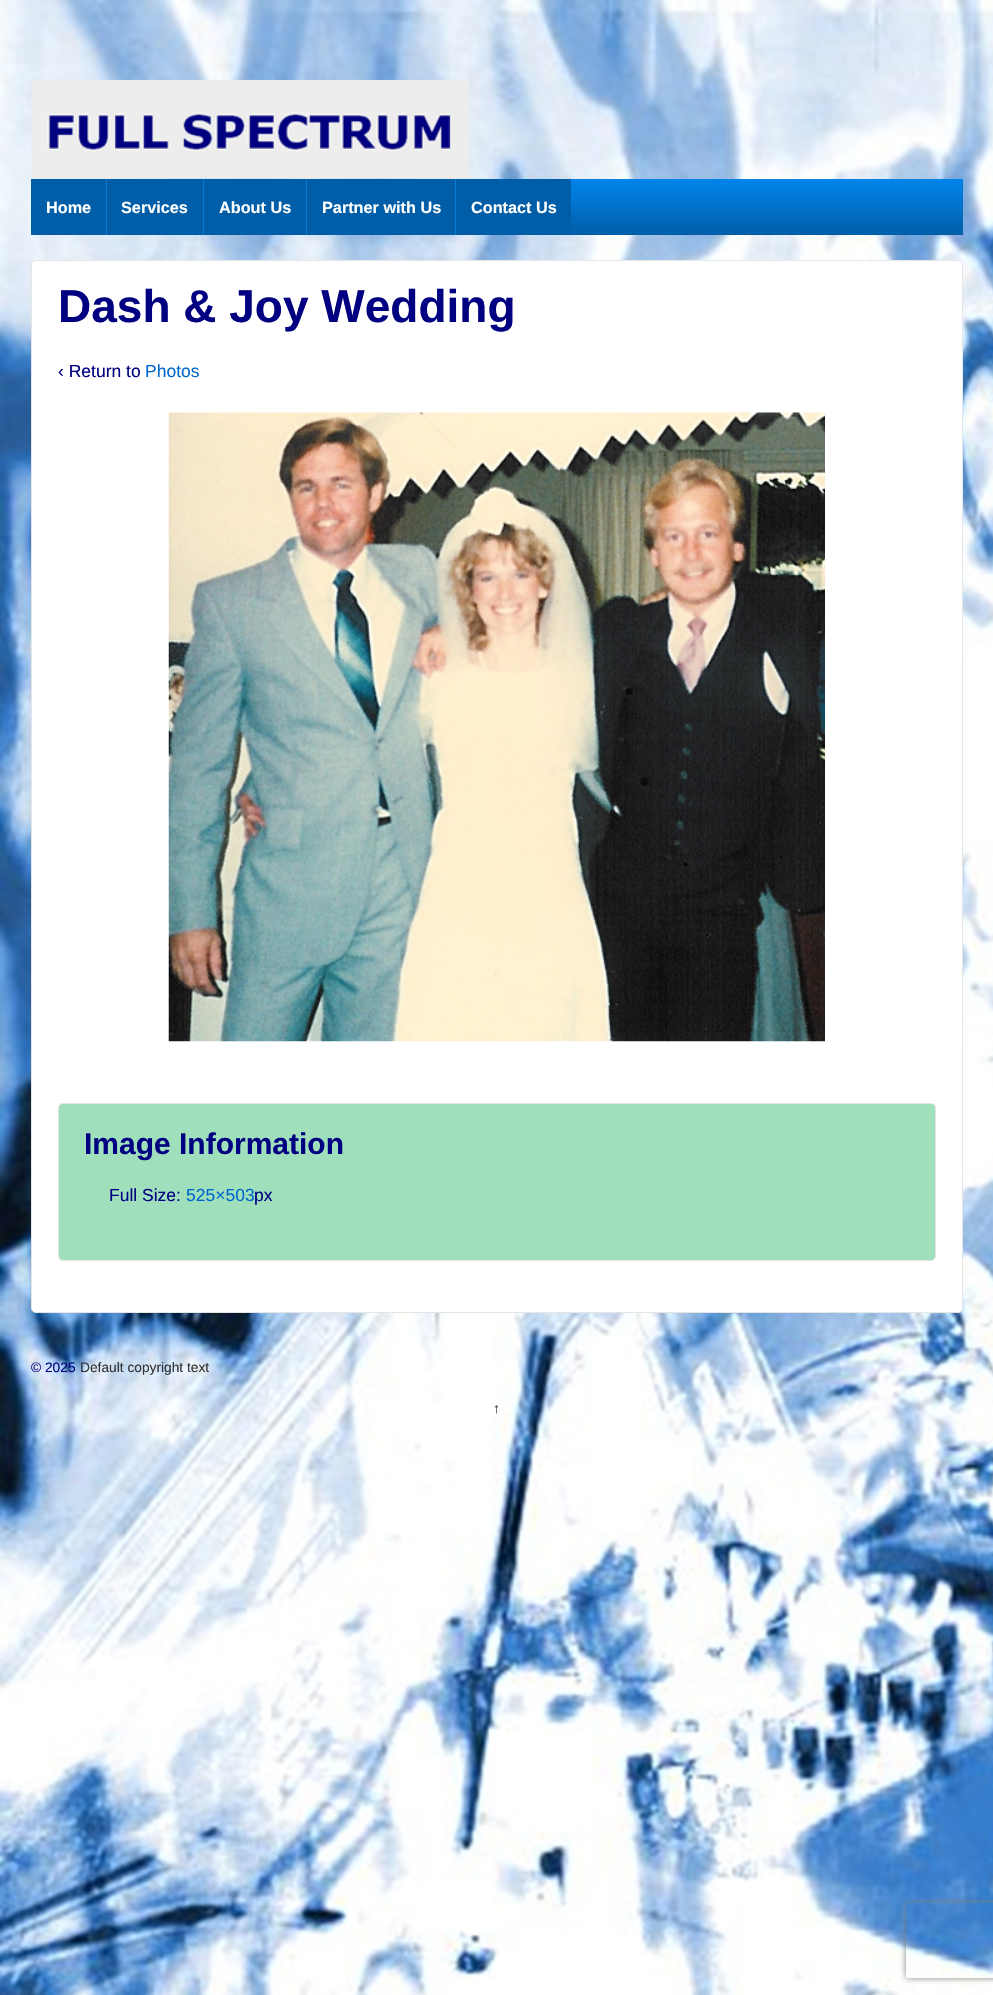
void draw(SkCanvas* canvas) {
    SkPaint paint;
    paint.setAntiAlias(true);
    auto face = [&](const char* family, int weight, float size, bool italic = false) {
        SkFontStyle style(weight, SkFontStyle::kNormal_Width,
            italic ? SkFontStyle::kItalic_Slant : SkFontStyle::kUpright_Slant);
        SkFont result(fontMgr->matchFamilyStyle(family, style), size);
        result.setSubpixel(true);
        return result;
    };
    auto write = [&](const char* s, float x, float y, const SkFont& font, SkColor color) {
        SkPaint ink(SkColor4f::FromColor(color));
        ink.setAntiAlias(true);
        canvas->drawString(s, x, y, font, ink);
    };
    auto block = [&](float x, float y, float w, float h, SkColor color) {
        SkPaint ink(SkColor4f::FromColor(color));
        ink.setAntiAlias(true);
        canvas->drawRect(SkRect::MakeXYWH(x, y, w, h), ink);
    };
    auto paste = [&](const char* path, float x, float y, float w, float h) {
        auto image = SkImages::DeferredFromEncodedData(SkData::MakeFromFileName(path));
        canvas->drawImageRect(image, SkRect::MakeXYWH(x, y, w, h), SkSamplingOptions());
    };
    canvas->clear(SK_ColorWHITE);
    paste("pic1.png", 0, 0, 993, 1995);
    paste("pic2.png", 31, 80, 438, 99);
    {
        const SkColor colors[] = {SkColorSetRGB(0, 132, 235), SkColorSetRGB(0, 94, 168)};
        const float stops[] = {0, 1};
        const SkPoint ends[] = {{497, 179}, {497, 235}};
        paint.setShader(SkGradientShader::MakeLinear(ends, colors, stops, 2, SkTileMode::kClamp));
        paint.setAlpha(255);
    }
    canvas->drawRect(SkRect::MakeXYWH(571, 179, 392, 56), paint);
    block(31, 179, 75, 56, SkColorSetRGB(0, 94, 168));
    auto kFont1 = face("Liberation Sans", 700, 16.25f);
    write("Home", 46, 213, kFont1, SK_ColorWHITE);
    block(107, 179, 96, 56, SkColorSetRGB(0, 94, 168));
    block(106, 179, 1, 56, SkColorSetRGB(2, 122, 215));
    write("Services", 121, 213, kFont1, SK_ColorWHITE);
    block(204, 179, 102, 56, SkColorSetRGB(0, 94, 168));
    block(203, 179, 1, 56, SkColorSetRGB(2, 122, 215));
    write("About Us", 219, 213, kFont1, SK_ColorWHITE);
    block(307, 179, 148, 56, SkColorSetRGB(0, 94, 168));
    block(306, 179, 1, 56, SkColorSetRGB(2, 122, 215));
    write("Partner with Us", 322, 213, kFont1, SK_ColorWHITE);
    block(456, 179, 115, 56, SkColorSetRGB(0, 94, 168));
    block(455, 179, 1, 56, SkColorSetRGB(2, 122, 215));
    write("Contact Us", 471, 213, kFont1, SK_ColorWHITE);
    paint.setShader(nullptr);
    paint.setColor(SK_ColorWHITE);
    canvas->drawRoundRect(SkRect::MakeXYWH(31.5f, 260.5f, 931, 1052), 4.5f, 4.5f, paint);
    paint.setStyle(SkPaint::kStroke_Style);
    paint.setStrokeWidth(1);
    paint.setColor(SkColorSetRGB(229, 229, 229));
    canvas->drawRoundRect(SkRect::MakeXYWH(31.5f, 260.5f, 931, 1052), 4.5f, 4.5f, paint);
    auto kFont2 = face("Liberation Sans", 700, 46);
    write("Dash & Joy Wedding", 58, 322, kFont2, SkColorSetRGB(0, 0, 128));
    auto kFont3 = face("Liberation Sans", 400, 17.5f);
    write("‹ Return to", 58, 377, kFont3, SkColorSetRGB(0, 0, 128));
    write("Photos", 145, 377, kFont3, SkColorSetRGB(0, 102, 204));
    paste("pic3.png", 168, 412, 657, 630);
    paint.setStyle(SkPaint::kFill_Style);
    paint.setColor(SkColorSetRGB(159, 223, 188));
    canvas->drawRoundRect(SkRect::MakeXYWH(58.5f, 1103.5f, 877, 157), 4.5f, 4.5f, paint);
    paint.setStyle(SkPaint::kStroke_Style);
    paint.setColor(SkColorSetRGB(229, 229, 229));
    canvas->drawRoundRect(SkRect::MakeXYWH(58.5f, 1103.5f, 877, 157), 4.5f, 4.5f, paint);
    auto kFont4 = face("Liberation Sans", 700, 30);
    write("Image Information", 84, 1154, kFont4, SkColorSetRGB(0, 0, 128));
    write("Full Size:", 109, 1201, kFont3, SkColorSetRGB(0, 0, 128));
    write("525×503", 186, 1201, kFont3, SkColorSetRGB(0, 102, 204));
    write("px", 254, 1201, kFont3, SkColorSetRGB(0, 0, 128));
    auto kFont5 = face("Liberation Sans", 400, 13.75f);
    write("© 2025", 31, 1372, kFont5, SkColorSetRGB(0, 0, 128));
    write("Default copyright text", 80, 1372, kFont5, SkColorSetRGB(51, 51, 51));
    write("↑", 493, 1413, kFont5, SkColorSetRGB(51, 51, 51));
    canvas->save();
    canvas->clipPath(SkPathBuilder(SkPathFillType::kEvenOdd).moveTo(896, 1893).lineTo(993, 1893).lineTo(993, 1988).lineTo(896, 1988).close().moveTo(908.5f, 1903).lineTo(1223.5f, 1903).cubicTo(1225, 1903, 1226, 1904, 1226, 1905.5f).lineTo(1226, 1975.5f).cubicTo(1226, 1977, 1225, 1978, 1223.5f, 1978).lineTo(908.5f, 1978).cubicTo(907, 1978, 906, 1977, 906, 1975.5f).lineTo(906, 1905.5f).cubicTo(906, 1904, 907, 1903, 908.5f, 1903).close().detach(), true);
    paint.setStyle(SkPaint::kFill_Style);
    paint.setColor(SkColorSetRGB(128, 128, 128));
    paint.setMaskFilter(SkMaskFilter::MakeBlur(kNormal_SkBlurStyle, 3));
    canvas->drawRoundRect(SkRect::MakeXYWH(906, 1903, 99, 75), 2.5f, 2.5f, paint);
    paint.setMaskFilter(nullptr);
    canvas->restore();
}
